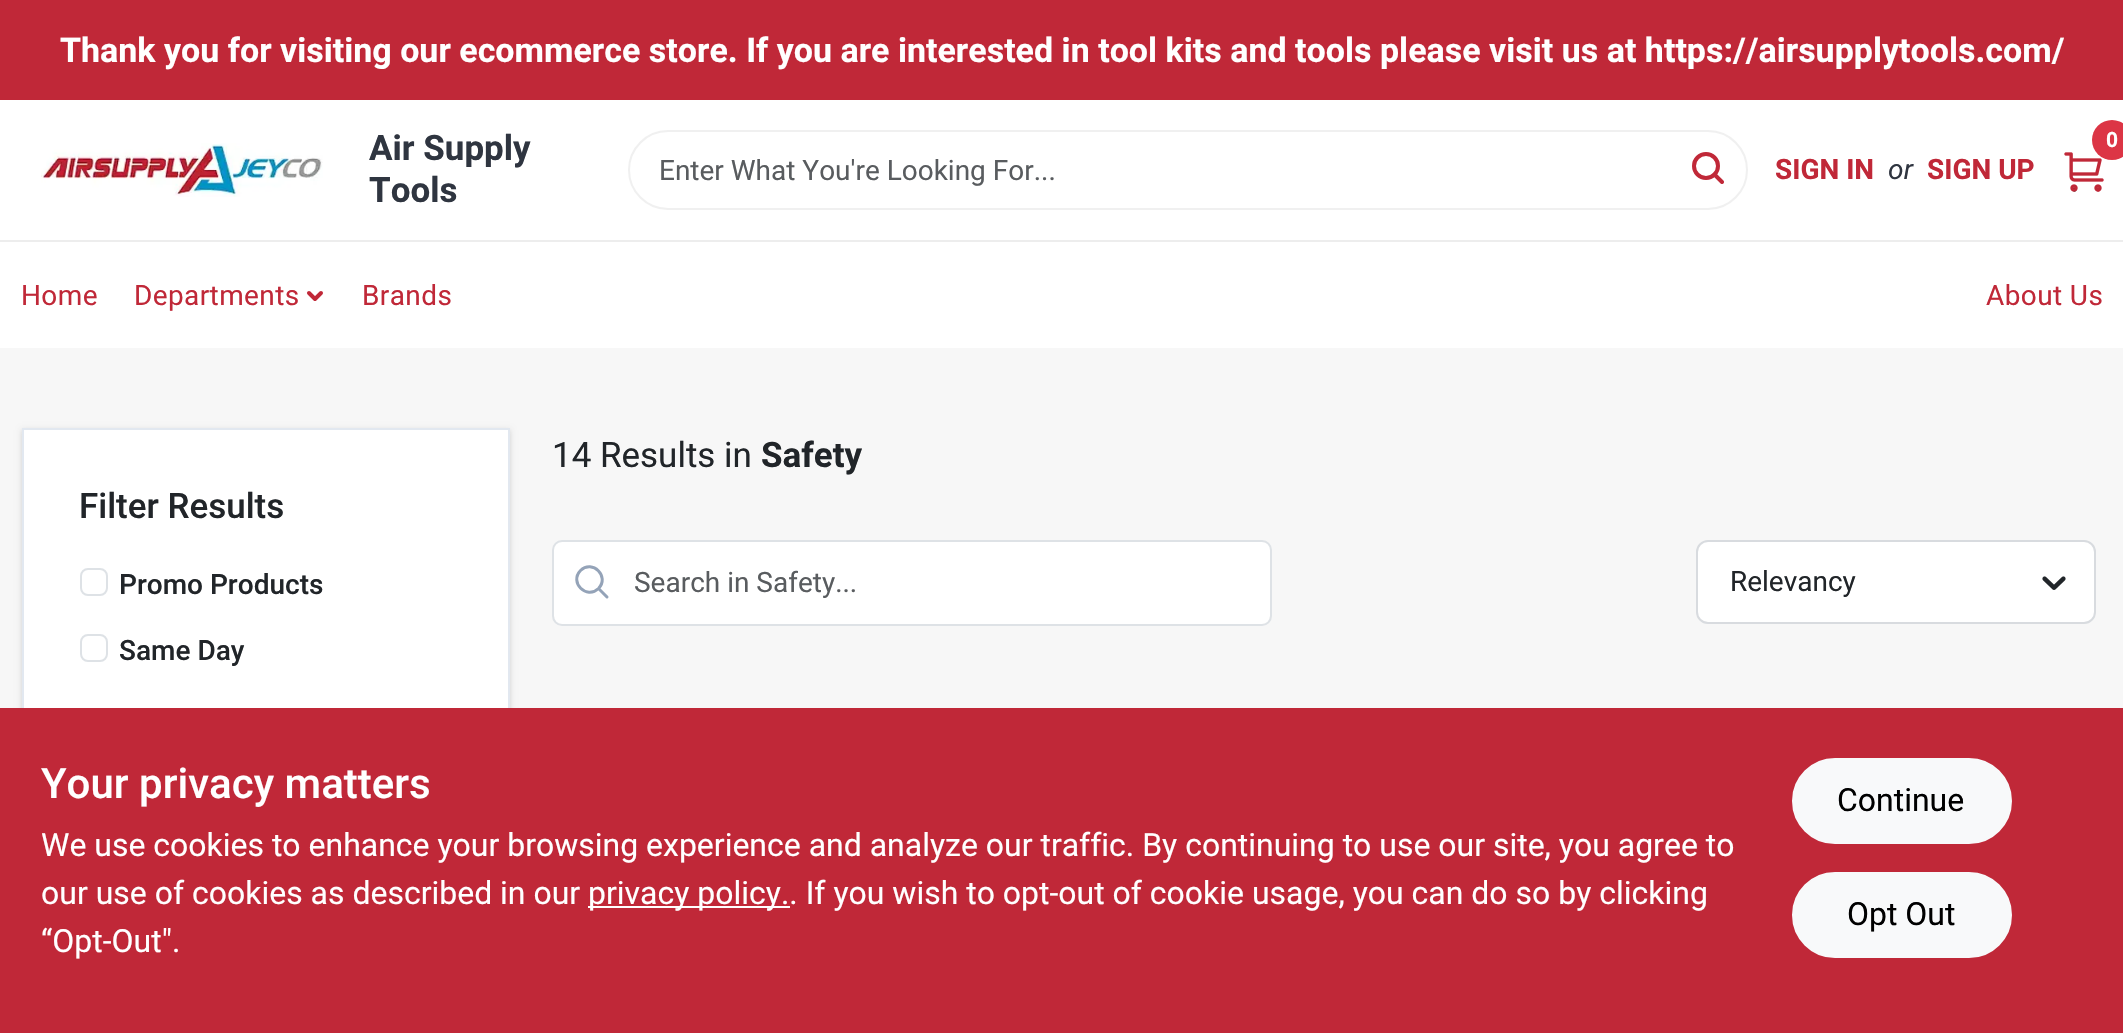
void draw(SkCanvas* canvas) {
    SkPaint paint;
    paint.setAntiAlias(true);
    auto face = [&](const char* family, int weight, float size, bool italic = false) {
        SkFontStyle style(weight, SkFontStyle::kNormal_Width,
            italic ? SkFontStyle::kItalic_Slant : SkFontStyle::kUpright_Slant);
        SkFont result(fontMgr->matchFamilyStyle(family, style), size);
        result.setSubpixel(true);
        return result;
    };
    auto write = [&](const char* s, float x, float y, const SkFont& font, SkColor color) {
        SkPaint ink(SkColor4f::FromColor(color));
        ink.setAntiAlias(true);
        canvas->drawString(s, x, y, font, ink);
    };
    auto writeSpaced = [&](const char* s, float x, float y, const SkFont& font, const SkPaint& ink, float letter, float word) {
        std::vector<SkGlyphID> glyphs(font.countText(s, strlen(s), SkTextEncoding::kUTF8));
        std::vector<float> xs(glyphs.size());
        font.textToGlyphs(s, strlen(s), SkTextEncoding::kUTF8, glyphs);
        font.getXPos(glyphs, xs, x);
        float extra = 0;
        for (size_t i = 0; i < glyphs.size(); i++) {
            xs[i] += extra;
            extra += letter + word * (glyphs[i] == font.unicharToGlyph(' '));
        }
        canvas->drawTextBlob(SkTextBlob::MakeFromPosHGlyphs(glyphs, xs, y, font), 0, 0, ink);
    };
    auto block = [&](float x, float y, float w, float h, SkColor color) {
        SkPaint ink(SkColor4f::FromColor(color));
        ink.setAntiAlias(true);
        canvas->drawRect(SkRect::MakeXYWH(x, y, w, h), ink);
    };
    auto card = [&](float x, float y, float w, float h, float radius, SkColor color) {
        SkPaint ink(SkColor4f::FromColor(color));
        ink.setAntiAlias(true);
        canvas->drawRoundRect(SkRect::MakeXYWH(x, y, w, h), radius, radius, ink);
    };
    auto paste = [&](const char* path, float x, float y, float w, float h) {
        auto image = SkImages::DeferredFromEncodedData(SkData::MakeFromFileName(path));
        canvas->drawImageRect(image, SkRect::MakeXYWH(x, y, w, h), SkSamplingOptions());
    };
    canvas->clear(SkColorSetRGB(247, 247, 247));
    block(0, 0, 2123, 100, SkColorSetRGB(192, 40, 56));
    auto kFont1 = face("Roboto", 700, 34);
    write("Thank you for visiting our ecommerce store. If you are interested in tool kits and tools please visit us at https://airsupplytools.com/", 60, 62, kFont1, SK_ColorWHITE);
    block(0, 100, 2123, 140, SK_ColorWHITE);
    paste("pic1.png", 41, 143, 282, 54);
    auto kFont2 = face("Roboto", 700, 35);
    write("Air Supply", 369, 160, kFont2, SkColorSetRGB(47, 53, 64));
    write("Tools", 369, 202, kFont2, SkColorSetRGB(47, 53, 64));
    paint.setStyle(SkPaint::kStroke_Style);
    paint.setStrokeWidth(2);
    paint.setColor(SkColorSetRGB(240, 240, 240));
    canvas->drawRoundRect(SkRect::MakeXYWH(629, 131, 1118, 78), 39, 39, paint);
    auto kFont3 = face("Roboto", 400, 28);
    write("Enter What You're Looking For...", 659, 180, kFont3, SkColorSetRGB(89, 92, 95));
    paste("pic2.png", 1692, 152, 32, 32);
    paste("pic3.png", 2064, 152, 40, 40);
    paint.setStyle(SkPaint::kFill_Style);
    paint.setColor(SkColorSetRGB(220, 53, 69));
    canvas->drawCircle(2112, 140, 20, paint);
    auto kFont4 = face("Roboto", 700, 21);
    paint.setColor(SK_ColorWHITE);
    writeSpaced("0", 2106, 147, kFont4, paint, -2, 0);
    auto kFont5 = face("Roboto", 700, 28);
    write("SIGN IN", 1775, 179, kFont5, SkColorSetRGB(192, 40, 56));
    auto kFont6 = face("Roboto", 400, 28, true);
    write("or", 1888, 179, kFont6, SkColorSetRGB(47, 53, 64));
    write("SIGN UP", 1927, 179, kFont5, SkColorSetRGB(192, 40, 56));
    block(0, 242, 2123, 106, SK_ColorWHITE);
    block(0, 240, 2123, 2, SkColorSetRGB(237, 237, 237));
    paint.setColor(SkColorSetRGB(192, 40, 56));
    writeSpaced("Home", 21, 305, kFont3, paint, 0.4f, 0);
    writeSpaced("Departments", 134, 305, kFont3, paint, 0.4f, 0);
    paint.setStyle(SkPaint::kStroke_Style);
    paint.setStrokeWidth(4);
    paint.setStrokeCap(SkPaint::kRound_Cap);
    paint.setStrokeJoin(SkPaint::kRound_Join);
    canvas->drawPath(SkPathBuilder().moveTo(321, 293).lineTo(315, 299).lineTo(309, 293).detach(), paint);
    paint.setStyle(SkPaint::kFill_Style);
    writeSpaced("Brands", 362, 305, kFont3, paint, 0.4f, 0);
    writeSpaced("About Us", 1986, 305, kFont3, paint, 0.4f, 0);
    paint.setColor(SkColorSetARGB(15, 0, 0, 0));
    paint.setMaskFilter(SkMaskFilter::MakeBlur(kNormal_SkBlurStyle, 2));
    canvas->drawRect(SkRect::MakeXYWH(22, 430, 488, 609), paint);
    paint.setMaskFilter(nullptr);
    paint.setColor(SkColorSetARGB(26, 0, 0, 0));
    paint.setMaskFilter(SkMaskFilter::MakeBlur(kNormal_SkBlurStyle, 3));
    canvas->drawRect(SkRect::MakeXYWH(22, 430, 488, 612), paint);
    paint.setMaskFilter(nullptr);
    block(24, 430, 484, 278, SK_ColorWHITE);
    paint.setStyle(SkPaint::kStroke_Style);
    paint.setStrokeWidth(2);
    paint.setStrokeCap(SkPaint::kButt_Cap);
    paint.setStrokeJoin(SkPaint::kMiter_Join);
    paint.setColor(SkColorSetRGB(226, 232, 240));
    canvas->drawRect(SkRect::MakeXYWH(23, 429, 486, 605), paint);
    auto kFont7 = face("Roboto", 500, 35);
    write("Filter Results", 79, 518, kFont7, SkColorSetRGB(33, 37, 41));
    paint.setColor(SkColorSetRGB(222, 226, 230));
    canvas->drawRoundRect(SkRect::MakeXYWH(81, 569, 26, 26), 7, 7, paint);
    auto kFont8 = face("Roboto", 500, 28);
    write("Promo Products", 119, 594, kFont8, SkColorSetRGB(33, 37, 41));
    canvas->drawRoundRect(SkRect::MakeXYWH(81, 635, 26, 26), 7, 7, paint);
    write("Same Day", 119, 660, kFont8, SkColorSetRGB(33, 37, 41));
    auto kFont9 = face("Roboto", 400, 35);
    write("14 Results in", 552, 467, kFont9, SkColorSetRGB(33, 37, 41));
    write("Safety", 761, 467, kFont2, SkColorSetRGB(33, 37, 41));
    card(554, 542, 716, 82, 8, SK_ColorWHITE);
    paint.setStrokeWidth(3);
    paint.setStrokeCap(SkPaint::kRound_Cap);
    paint.setStrokeJoin(SkPaint::kRound_Join);
    paint.setColor(SkColorSetRGB(148, 163, 184));
    canvas->drawPath(SkPathBuilder().moveTo(607, 597).lineTo(598.5f, 588.5f).moveTo(598.5f, 588.5f).cubicTo(610, 576.5f, 592.5f, 559, 580.5f, 570.5f).cubicTo(569, 582.5f, 586.5f, 600, 598.5f, 588.5f).close().detach(), paint);
    paint.setStrokeWidth(2);
    paint.setStrokeCap(SkPaint::kButt_Cap);
    paint.setStrokeJoin(SkPaint::kMiter_Join);
    paint.setColor(SkColorSetRGB(222, 226, 230));
    canvas->drawRoundRect(SkRect::MakeXYWH(553, 541, 718, 84), 9, 9, paint);
    write("Search in Safety...", 634, 592, kFont3, SkColorSetRGB(89, 92, 95));
    paint.setStyle(SkPaint::kFill_Style);
    paint.setColor(SK_ColorWHITE);
    canvas->drawRoundRect(SkRect::MakeXYWH(1697, 541, 398, 82), 11, 11, paint);
    paint.setStyle(SkPaint::kStroke_Style);
    paint.setColor(SkColorSetRGB(216, 219, 223));
    canvas->drawRoundRect(SkRect::MakeXYWH(1697, 541, 398, 82), 11, 11, paint);
    write("Relevancy", 1730, 591, kFont3, SkColorSetRGB(33, 37, 41));
    paste("pic4.png", 2042, 576, 24, 14);
    block(0, 708, 2123, 325, SkColorSetRGB(192, 40, 56));
    auto kFont10 = face("Roboto", 500, 42);
    write("Your privacy matters", 41, 798, kFont10, SK_ColorWHITE);
    auto kFont11 = face("Roboto", 400, 32);
    write("We use cookies to enhance your browsing experience and analyze our traffic. By continuing to use our site, you agree to", 41, 856, kFont11, SK_ColorWHITE);
    write("our use of cookies as described in our", 41, 904, kFont11, SK_ColorWHITE);
    block(588, 906, 202, 2, SK_ColorWHITE);
    write("privacy policy.. If you wish to opt-out of cookie usage, you can do so by clicking", 588, 904, kFont11, SK_ColorWHITE);
    write("“Opt-Out\".", 41, 952, kFont11, SK_ColorWHITE);
    paint.setStyle(SkPaint::kFill_Style);
    paint.setColor(SkColorSetRGB(248, 249, 250));
    canvas->drawRoundRect(SkRect::MakeXYWH(1793, 759, 218, 84), 42, 42, paint);
    paint.setStyle(SkPaint::kStroke_Style);
    canvas->drawRoundRect(SkRect::MakeXYWH(1793, 759, 218, 84), 42, 42, paint);
    write("Continue", 1837, 811, kFont11, SK_ColorBLACK);
    paint.setStyle(SkPaint::kFill_Style);
    canvas->drawRoundRect(SkRect::MakeXYWH(1793, 873, 218, 84), 42, 42, paint);
    paint.setStyle(SkPaint::kStroke_Style);
    canvas->drawRoundRect(SkRect::MakeXYWH(1793, 873, 218, 84), 42, 42, paint);
    write("Opt Out", 1847, 925, kFont11, SK_ColorBLACK);
}
